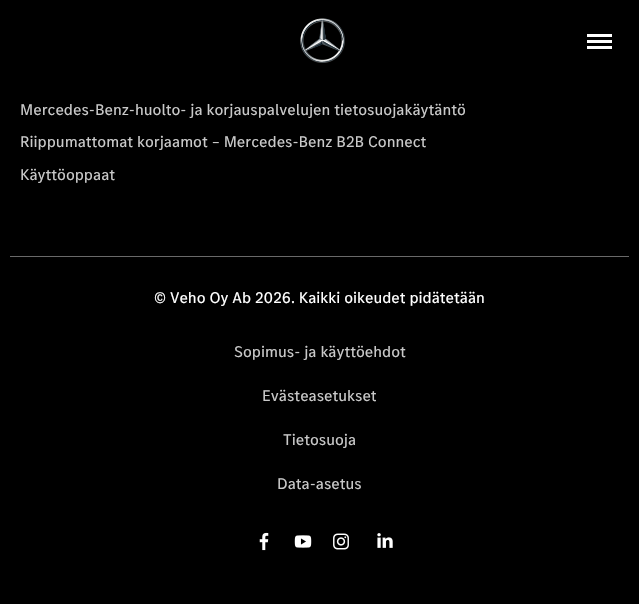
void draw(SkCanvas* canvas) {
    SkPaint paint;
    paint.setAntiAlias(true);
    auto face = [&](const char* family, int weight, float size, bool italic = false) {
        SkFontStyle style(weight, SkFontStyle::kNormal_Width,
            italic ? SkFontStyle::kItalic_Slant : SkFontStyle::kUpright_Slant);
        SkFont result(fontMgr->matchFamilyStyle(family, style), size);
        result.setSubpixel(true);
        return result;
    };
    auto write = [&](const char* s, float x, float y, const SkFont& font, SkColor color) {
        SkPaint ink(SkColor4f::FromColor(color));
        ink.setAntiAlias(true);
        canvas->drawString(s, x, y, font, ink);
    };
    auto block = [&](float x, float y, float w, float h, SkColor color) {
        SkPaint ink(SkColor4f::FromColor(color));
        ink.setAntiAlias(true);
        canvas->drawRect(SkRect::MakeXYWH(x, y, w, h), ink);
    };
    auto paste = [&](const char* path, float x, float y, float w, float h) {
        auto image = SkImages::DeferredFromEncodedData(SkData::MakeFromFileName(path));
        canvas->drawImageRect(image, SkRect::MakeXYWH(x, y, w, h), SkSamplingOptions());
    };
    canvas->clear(SK_ColorBLACK);
    paste("pic1.png", 300, 18, 45, 45);
    block(587, 46, 25, 3, SK_ColorWHITE);
    block(587, 34, 25, 3, SK_ColorWHITE);
    block(587, 40, 25, 3, SK_ColorWHITE);
    auto kFont1 = face("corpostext", 400, 16);
    write("Mercedes-Benz-huolto- ja korjauspalvelujen tietosuojakäytäntö", 20, 115, kFont1, SkColorSetRGB(201, 201, 201));
    write("Riippumattomat korjaamot – Mercedes-Benz B2B Connect", 20, 147, kFont1, SkColorSetRGB(201, 201, 201));
    write("Käyttöoppaat", 20, 180, kFont1, SkColorSetRGB(201, 201, 201));
    block(10, 256, 619, 1, SkColorSetRGB(105, 105, 105));
    write("© Veho Oy Ab 2026. Kaikki oikeudet pidätetään", 154, 303, kFont1, SK_ColorWHITE);
    write("Sopimus- ja käyttöehdot", 234, 357, kFont1, SkColorSetRGB(201, 201, 201));
    write("Evästeasetukset", 262, 401, kFont1, SkColorSetRGB(201, 201, 201));
    write("Tietosuoja", 283, 445, kFont1, SkColorSetRGB(201, 201, 201));
    write("Data-asetus", 277, 489, kFont1, SkColorSetRGB(201, 201, 201));
    paste("pic2.png", 259, 532, 10, 19);
    paste("pic3.png", 294, 535, 18, 13);
    paste("pic4.png", 333, 533, 16, 17);
    paste("pic5.png", 377, 533, 16, 15);
}
